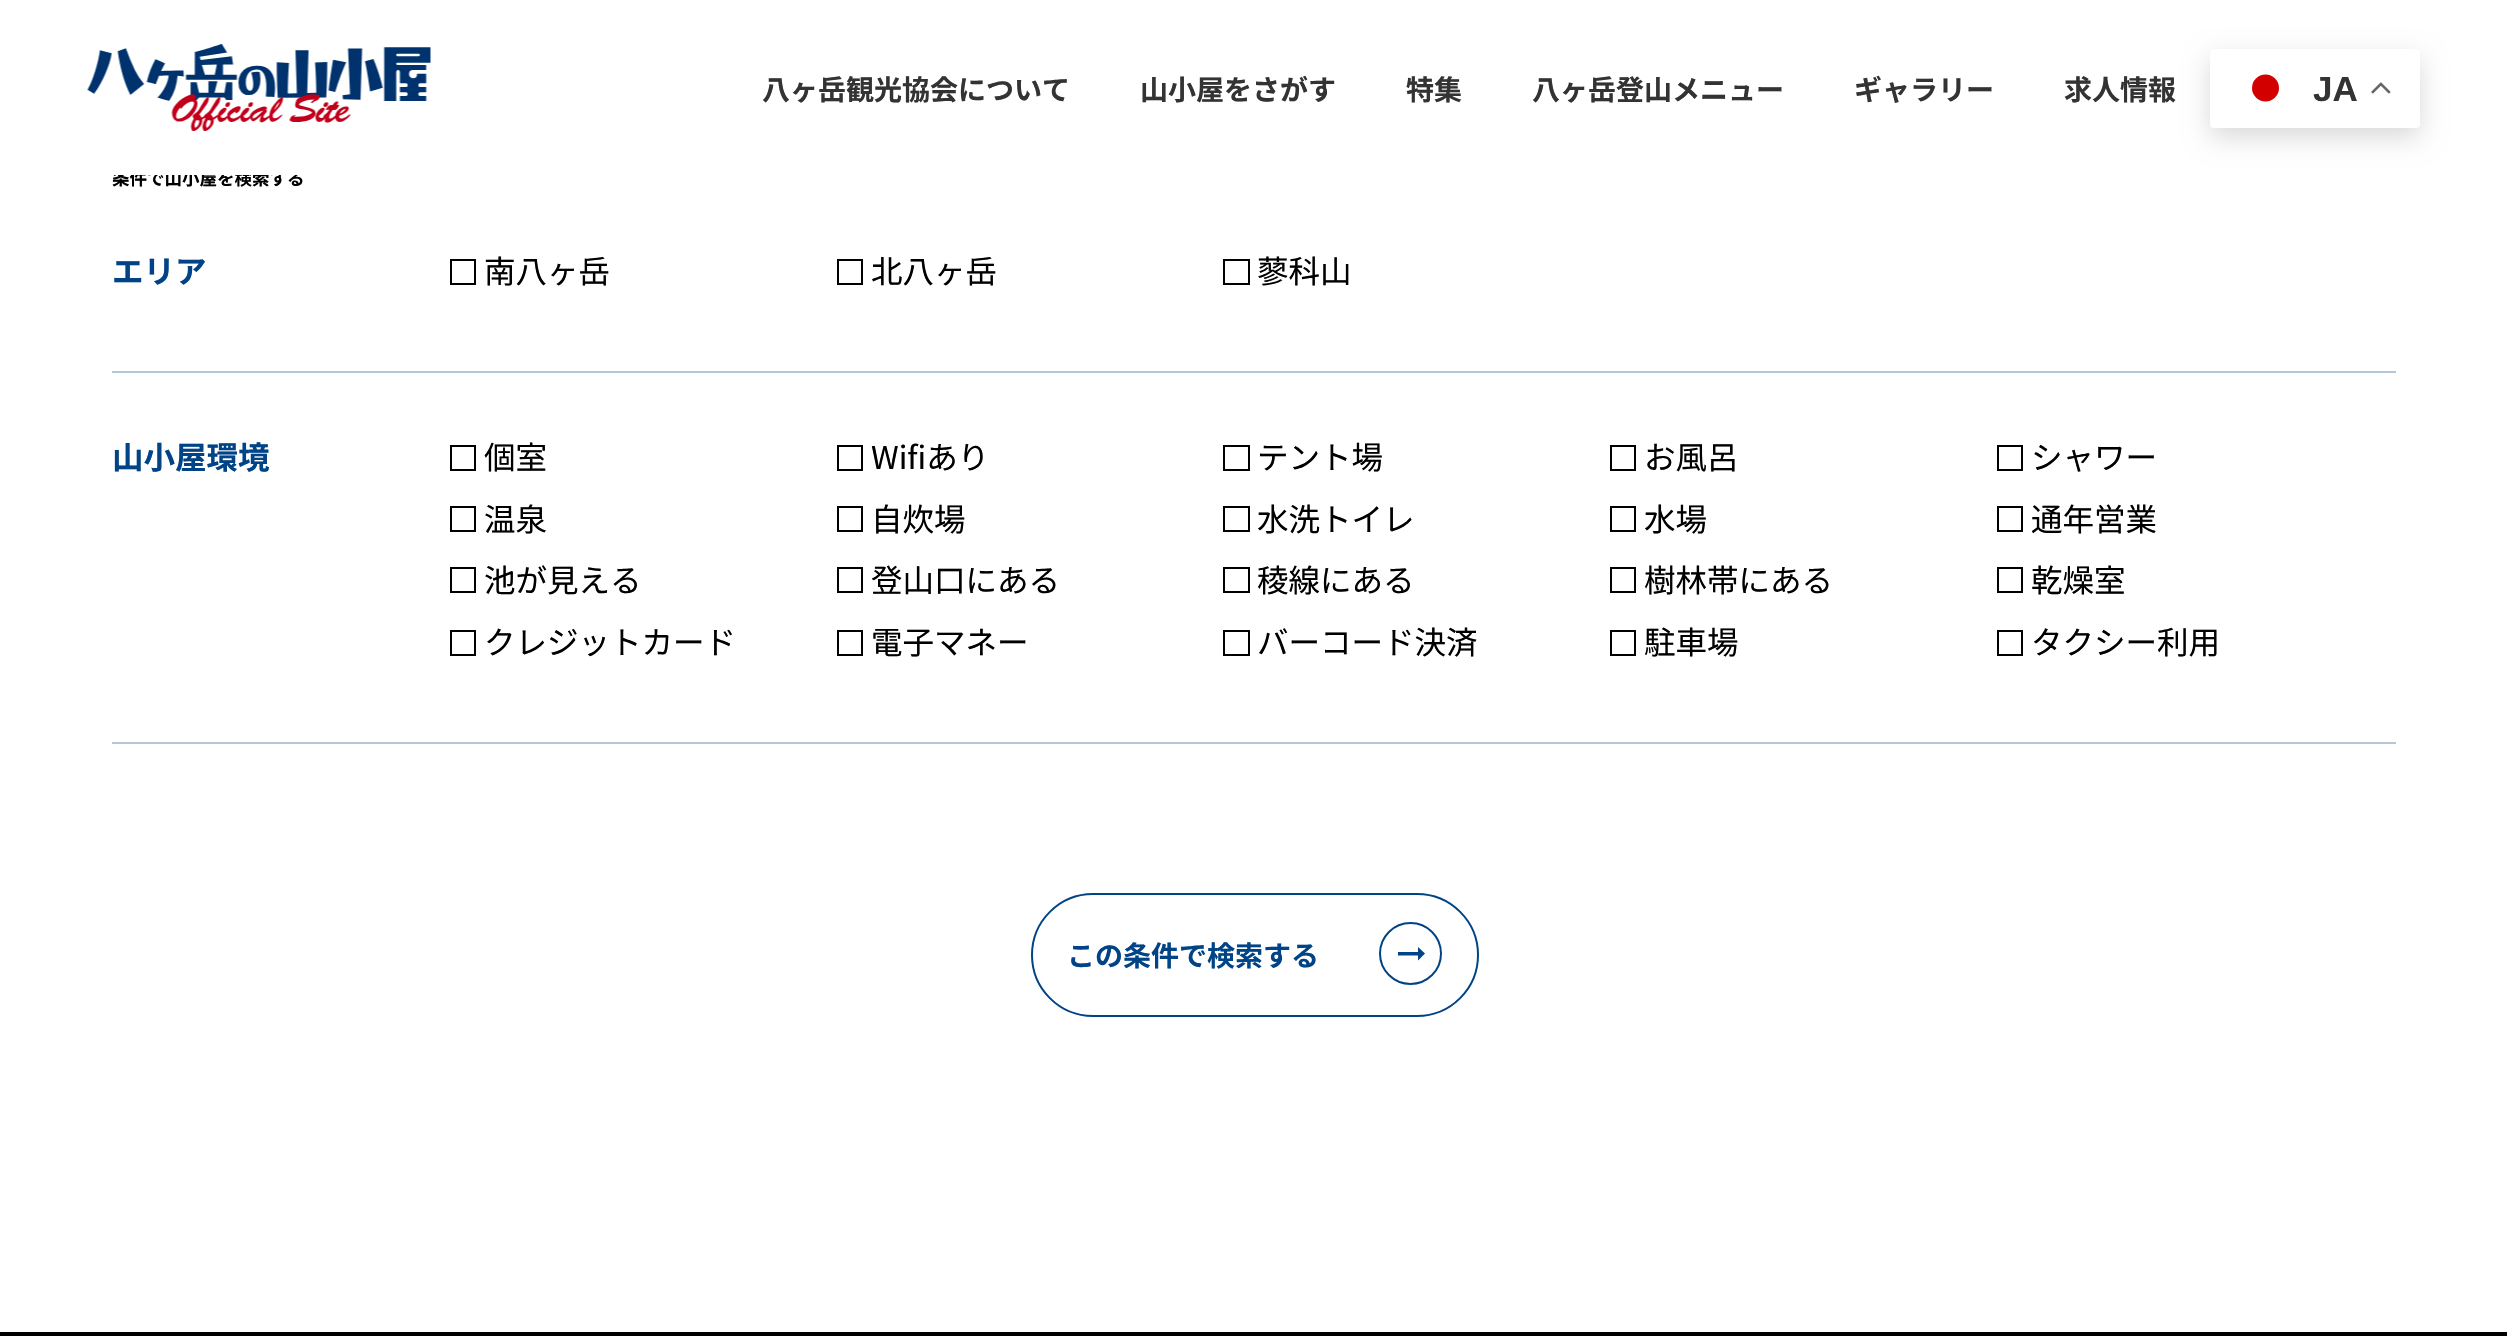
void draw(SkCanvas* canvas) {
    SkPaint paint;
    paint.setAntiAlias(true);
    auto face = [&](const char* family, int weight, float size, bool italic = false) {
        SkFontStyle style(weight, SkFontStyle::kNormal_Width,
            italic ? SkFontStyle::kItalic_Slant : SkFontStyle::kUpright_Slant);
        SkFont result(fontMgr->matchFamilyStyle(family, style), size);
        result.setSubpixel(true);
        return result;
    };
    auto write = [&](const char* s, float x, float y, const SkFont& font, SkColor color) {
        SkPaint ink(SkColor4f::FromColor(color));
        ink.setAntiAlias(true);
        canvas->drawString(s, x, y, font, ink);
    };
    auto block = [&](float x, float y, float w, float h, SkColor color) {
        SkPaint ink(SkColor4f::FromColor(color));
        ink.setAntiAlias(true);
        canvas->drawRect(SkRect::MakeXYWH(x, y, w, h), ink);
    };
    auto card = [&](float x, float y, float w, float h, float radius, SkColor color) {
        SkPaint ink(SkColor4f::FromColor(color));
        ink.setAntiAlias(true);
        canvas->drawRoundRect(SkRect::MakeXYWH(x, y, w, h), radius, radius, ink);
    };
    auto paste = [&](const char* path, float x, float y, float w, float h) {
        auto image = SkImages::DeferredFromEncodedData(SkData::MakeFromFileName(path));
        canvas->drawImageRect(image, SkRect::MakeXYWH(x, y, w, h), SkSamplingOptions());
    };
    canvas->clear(SK_ColorWHITE);
    auto kFont1 = face("Noto Sans JP", 700, 17.5f);
    write("条件で山小屋を検索する", 112, 185, kFont1, SK_ColorBLACK);
    block(113, 170, 188, 5, SK_ColorWHITE);
    paste("pic1.png", 87, 44, 344, 87);
    auto kFont2 = face("Noto Sans JP", 700, 28);
    write("八ヶ岳観光協会について", 762, 100, kFont2, SkColorSetRGB(51, 51, 51));
    write("山小屋をさがす", 1140, 100, kFont2, SkColorSetRGB(51, 51, 51));
    write("特集", 1406, 100, kFont2, SkColorSetRGB(51, 51, 51));
    write("八ヶ岳登山メニュー", 1532, 100, kFont2, SkColorSetRGB(51, 51, 51));
    write("ギャラリー", 1854, 100, kFont2, SkColorSetRGB(51, 51, 51));
    paint.setColor(SkColorSetARGB(38, 0, 0, 0));
    paint.setMaskFilter(SkMaskFilter::MakeBlur(kNormal_SkBlurStyle, 13));
    canvas->drawRoundRect(SkRect::MakeXYWH(2210, 58, 210, 79), 4, 4, paint);
    paint.setMaskFilter(nullptr);
    write("求人情報", 2064, 100, kFont2, SkColorSetRGB(51, 51, 51));
    card(2210, 49, 210, 79, 4, SK_ColorWHITE);
    paint.setColor(SkColorSetRGB(211, 0, 0));
    canvas->drawCircle(2265.5f, 88, 13.5f, paint);
    auto kFont3 = face("Liberation Sans", 700, 35);
    write("JA", 2313, 101, kFont3, SkColorSetRGB(51, 51, 51));
    paste("pic2.png", 2371, 82, 20, 12);
    block(112, 371, 2284, 2, SkColorSetRGB(179, 199, 219));
    auto kFont4 = face("Noto Sans JP", 700, 31.5f);
    write("エリア", 112, 283, kFont4, SkColorSetRGB(0, 67, 134));
    paint.setStyle(SkPaint::kStroke_Style);
    paint.setStrokeWidth(2);
    paint.setColor(SK_ColorBLACK);
    canvas->drawRect(SkRect::MakeXYWH(451, 260, 24, 24), paint);
    auto kFont5 = face("Noto Sans JP", 400, 31.5f);
    write("南八ヶ岳", 484, 283, kFont5, SK_ColorBLACK);
    canvas->drawRect(SkRect::MakeXYWH(838, 260, 24, 24), paint);
    write("北八ヶ岳", 871, 283, kFont5, SK_ColorBLACK);
    canvas->drawRect(SkRect::MakeXYWH(1224, 260, 25, 24), paint);
    write("蓼科山", 1257, 283, kFont5, SK_ColorBLACK);
    block(112, 742, 2284, 2, SkColorSetRGB(179, 199, 219));
    write("山小屋環境", 112, 469, kFont4, SkColorSetRGB(0, 67, 134));
    canvas->drawRect(SkRect::MakeXYWH(451, 446, 24, 24), paint);
    write("個室", 484, 469, kFont5, SK_ColorBLACK);
    canvas->drawRect(SkRect::MakeXYWH(838, 446, 24, 24), paint);
    write("Wifiあり", 871, 469, kFont5, SK_ColorBLACK);
    canvas->drawRect(SkRect::MakeXYWH(1224, 446, 25, 24), paint);
    write("テント場", 1257, 469, kFont5, SK_ColorBLACK);
    canvas->drawRect(SkRect::MakeXYWH(1611, 446, 24, 24), paint);
    write("お風呂", 1644, 469, kFont5, SK_ColorBLACK);
    canvas->drawRect(SkRect::MakeXYWH(1998, 446, 24, 24), paint);
    write("シャワー", 2031, 469, kFont5, SK_ColorBLACK);
    canvas->drawRect(SkRect::MakeXYWH(451, 507, 24, 24), paint);
    write("温泉", 484, 531, kFont5, SK_ColorBLACK);
    canvas->drawRect(SkRect::MakeXYWH(838, 507, 24, 24), paint);
    write("自炊場", 871, 531, kFont5, SK_ColorBLACK);
    canvas->drawRect(SkRect::MakeXYWH(1224, 507, 25, 24), paint);
    write("水洗トイレ", 1257, 531, kFont5, SK_ColorBLACK);
    canvas->drawRect(SkRect::MakeXYWH(1611, 507, 24, 24), paint);
    write("水場", 1644, 531, kFont5, SK_ColorBLACK);
    canvas->drawRect(SkRect::MakeXYWH(1998, 507, 24, 24), paint);
    write("通年営業", 2031, 531, kFont5, SK_ColorBLACK);
    canvas->drawRect(SkRect::MakeXYWH(451, 568, 24, 24), paint);
    write("池が見える", 484, 592, kFont5, SK_ColorBLACK);
    canvas->drawRect(SkRect::MakeXYWH(838, 568, 24, 24), paint);
    write("登山口にある", 871, 592, kFont5, SK_ColorBLACK);
    canvas->drawRect(SkRect::MakeXYWH(1224, 568, 25, 24), paint);
    write("稜線にある", 1257, 592, kFont5, SK_ColorBLACK);
    canvas->drawRect(SkRect::MakeXYWH(1611, 568, 24, 24), paint);
    write("樹林帯にある", 1644, 592, kFont5, SK_ColorBLACK);
    canvas->drawRect(SkRect::MakeXYWH(1998, 568, 24, 24), paint);
    write("乾燥室", 2031, 592, kFont5, SK_ColorBLACK);
    canvas->drawRect(SkRect::MakeXYWH(451, 631, 24, 24), paint);
    write("クレジットカード", 484, 654, kFont5, SK_ColorBLACK);
    canvas->drawRect(SkRect::MakeXYWH(838, 631, 24, 24), paint);
    write("電子マネー", 871, 654, kFont5, SK_ColorBLACK);
    canvas->drawRect(SkRect::MakeXYWH(1224, 631, 25, 24), paint);
    write("バーコード決済", 1257, 654, kFont5, SK_ColorBLACK);
    canvas->drawRect(SkRect::MakeXYWH(1611, 631, 24, 24), paint);
    write("駐車場", 1644, 654, kFont5, SK_ColorBLACK);
    canvas->drawRect(SkRect::MakeXYWH(1998, 631, 24, 24), paint);
    write("タクシー利用", 2031, 654, kFont5, SK_ColorBLACK);
    paint.setColor(SkColorSetRGB(0, 67, 134));
    canvas->drawRoundRect(SkRect::MakeXYWH(1032, 894, 446, 122), 61, 61, paint);
    write("この条件で検索する", 1067, 966, kFont2, SkColorSetRGB(0, 67, 134));
    canvas->drawCircle(1410.5f, 953.5f, 30.5f, paint);
    paint.setStyle(SkPaint::kFill_Style);
    canvas->drawPath(SkPathBuilder().moveTo(1418, 947).lineTo(1425, 953.5f).lineTo(1418, 960.5f).lineTo(1418, 955.5f).lineTo(1398, 955.5f).lineTo(1398, 952).lineTo(1418, 952).close().detach(), paint);
    block(0, 1332, 2507, 4, SK_ColorBLACK);
}
